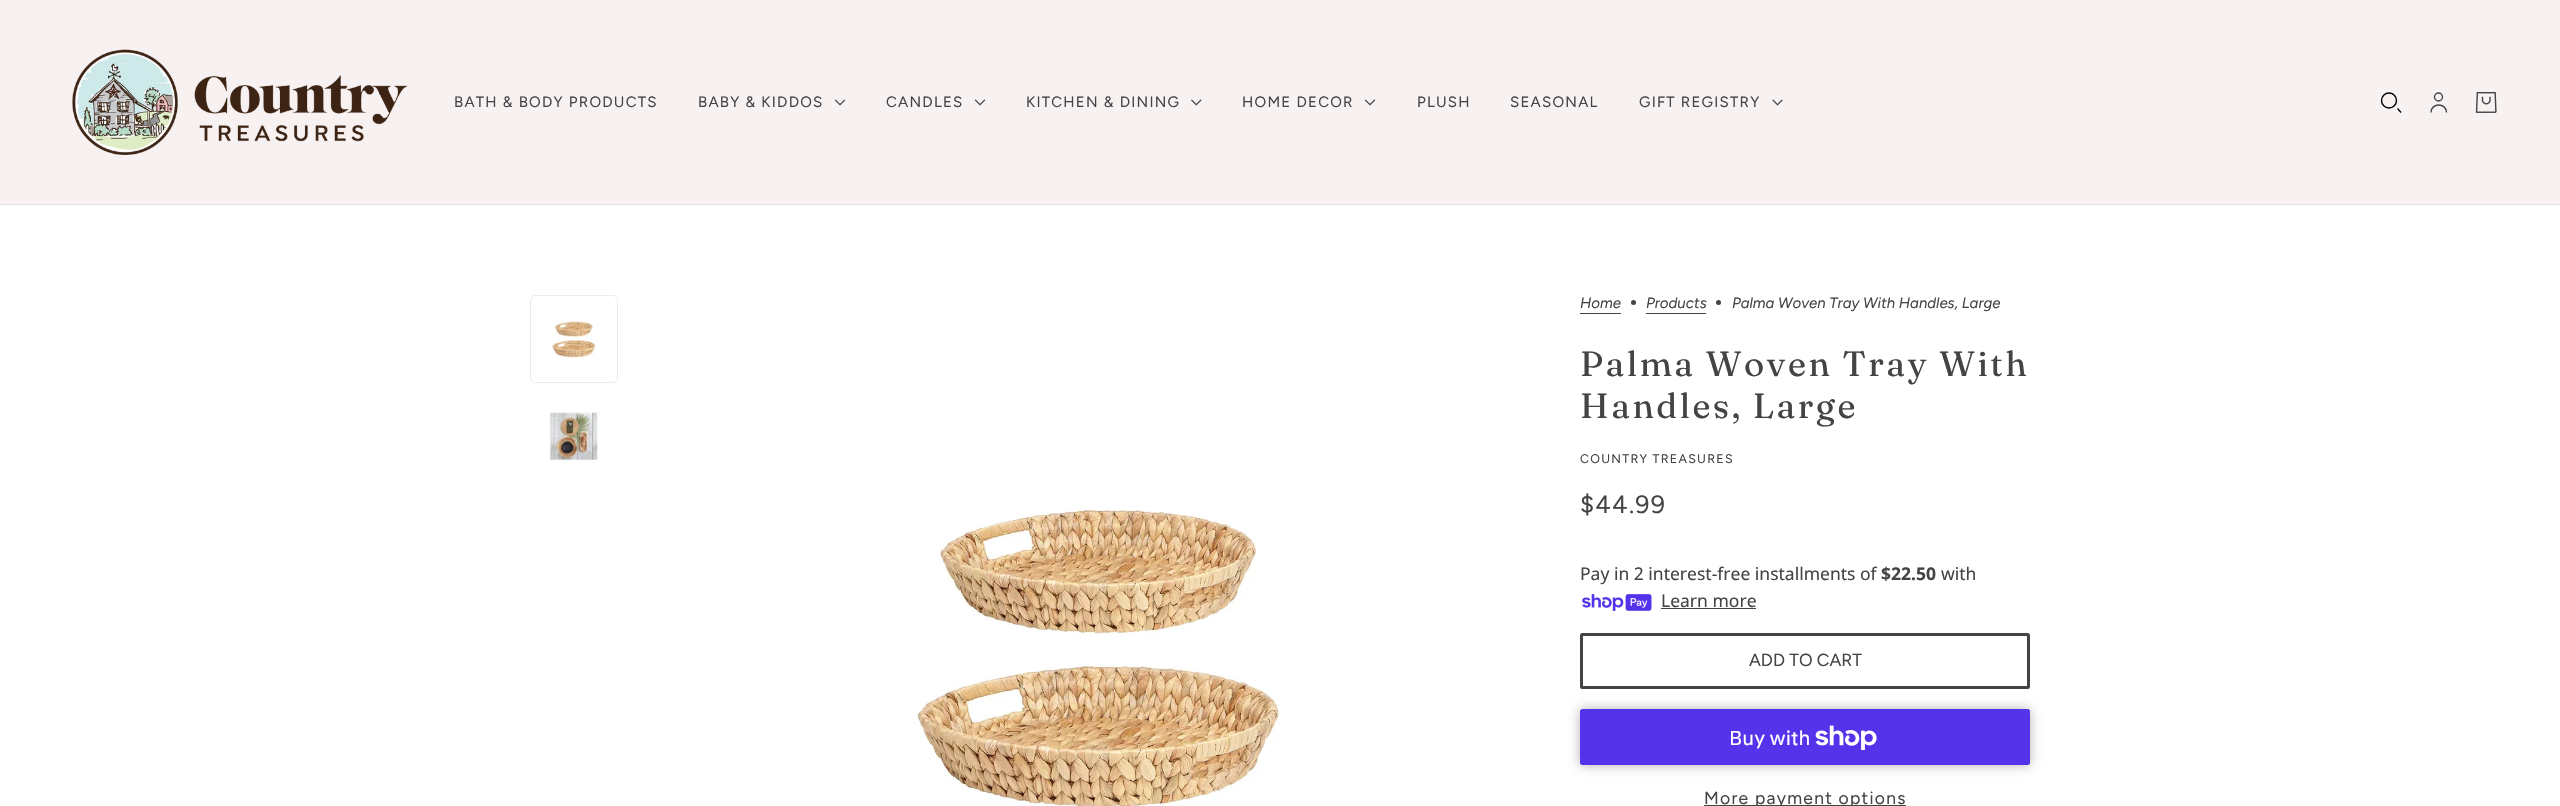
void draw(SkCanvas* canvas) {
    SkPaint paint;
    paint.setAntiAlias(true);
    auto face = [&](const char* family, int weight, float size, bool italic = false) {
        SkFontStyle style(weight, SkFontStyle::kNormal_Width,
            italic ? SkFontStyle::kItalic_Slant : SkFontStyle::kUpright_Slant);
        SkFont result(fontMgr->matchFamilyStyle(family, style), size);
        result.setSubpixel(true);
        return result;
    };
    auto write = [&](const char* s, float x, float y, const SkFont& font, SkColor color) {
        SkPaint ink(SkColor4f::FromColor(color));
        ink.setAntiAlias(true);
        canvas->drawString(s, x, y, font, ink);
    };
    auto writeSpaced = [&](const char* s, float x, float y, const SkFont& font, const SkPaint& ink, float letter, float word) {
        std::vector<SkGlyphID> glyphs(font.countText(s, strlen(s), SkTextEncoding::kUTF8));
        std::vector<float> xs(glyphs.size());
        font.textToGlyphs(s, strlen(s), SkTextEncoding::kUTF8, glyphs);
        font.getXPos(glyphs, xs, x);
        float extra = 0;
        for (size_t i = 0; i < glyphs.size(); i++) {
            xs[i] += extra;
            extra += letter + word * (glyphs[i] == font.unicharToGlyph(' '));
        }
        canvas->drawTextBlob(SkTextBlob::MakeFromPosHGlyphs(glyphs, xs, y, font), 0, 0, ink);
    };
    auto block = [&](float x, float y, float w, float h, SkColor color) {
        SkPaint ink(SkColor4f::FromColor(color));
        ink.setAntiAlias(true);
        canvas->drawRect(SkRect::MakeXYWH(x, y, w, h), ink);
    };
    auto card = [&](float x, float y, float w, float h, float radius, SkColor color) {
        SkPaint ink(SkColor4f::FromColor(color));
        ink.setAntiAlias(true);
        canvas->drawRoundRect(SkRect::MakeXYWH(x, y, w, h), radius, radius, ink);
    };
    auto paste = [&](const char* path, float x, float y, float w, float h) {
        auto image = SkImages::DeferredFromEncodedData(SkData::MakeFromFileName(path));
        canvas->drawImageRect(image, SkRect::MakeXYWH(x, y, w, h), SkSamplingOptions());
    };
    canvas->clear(SK_ColorWHITE);
    block(0, 0, 2560, 204, SkColorSetRGB(248, 241, 241));
    paste("pic1.png", 72, 49, 336, 106);
    auto kFont1 = face("Figtree", 400, 15);
    paint.setColor(SkColorSetRGB(68, 68, 68));
    writeSpaced("BATH & BODY PRODUCTS", 454, 107, kFont1, paint, 1.25f, 0);
    writeSpaced("BABY & KIDDOS", 698, 107, kFont1, paint, 1.25f, 0);
    paste("pic2.png", 834, 99, 12, 7);
    writeSpaced("CANDLES", 886, 107, kFont1, paint, 1.25f, 0);
    paste("pic2.png", 974, 99, 12, 7);
    writeSpaced("KITCHEN & DINING", 1026, 107, kFont1, paint, 1.25f, 0);
    paste("pic3.png", 1191, 99, 11, 7);
    writeSpaced("HOME DECOR", 1242, 107, kFont1, paint, 1.25f, 0);
    paste("pic2.png", 1364, 99, 12, 7);
    writeSpaced("PLUSH", 1417, 107, kFont1, paint, 1.25f, 0);
    writeSpaced("SEASONAL", 1510, 107, kFont1, paint, 1.25f, 0);
    writeSpaced("GIFT REGISTRY", 1639, 107, kFont1, paint, 1.25f, 0);
    paste("pic4.png", 1772, 99, 11, 7);
    paint.setStyle(SkPaint::kStroke_Style);
    paint.setStrokeWidth(1.4f);
    paint.setColor(SK_ColorBLACK);
    canvas->drawCircle(2389, 100.5f, 7.5f, paint);
    canvas->drawPath(SkPathBuilder().moveTo(2397.5f, 108.5f).lineTo(2401, 112.5f).detach(), paint);
    paint.setColor(SkColorSetRGB(68, 68, 68));
    canvas->drawCircle(2438.5f, 97, 4, paint);
    canvas->drawPath(SkPathBuilder().moveTo(2431, 112.5f).cubicTo(2431, 102.5f, 2446.5f, 102.5f, 2446.5f, 112.5f).detach(), paint);
    paste("pic5.png", 2475, 92, 22, 21);
    block(0, 204, 2560, 1, SkColorSetRGB(230, 224, 224));
    paint.setStrokeWidth(1);
    paint.setColor(SkColorSetRGB(236, 236, 236));
    canvas->drawRoundRect(SkRect::MakeXYWH(530.5f, 295.5f, 87, 87), 4.5f, 4.5f, paint);
    paste("pic6.png", 551, 317, 45, 41);
    paste("pic7.png", 550, 410, 50, 52);
    paste("pic8.png", 917, 509, 363, 297);
    auto kFont2 = face("Figtree", 400, 15, true);
    write("Home", 1580, 308, kFont2, SkColorSetRGB(68, 68, 68));
    block(1580, 313, 41, 1, SkColorSetRGB(68, 68, 68));
    paint.setStyle(SkPaint::kFill_Style);
    paint.setColor(SkColorSetRGB(68, 68, 68));
    canvas->drawCircle(1633.5f, 302.5f, 2.5f, paint);
    write("Products", 1646, 308, kFont2, SkColorSetRGB(68, 68, 68));
    block(1646, 313, 60, 1, SkColorSetRGB(68, 68, 68));
    canvas->drawCircle(1718.5f, 302.5f, 2.5f, paint);
    write("Palma Woven Tray With Handles, Large", 1732, 308, kFont2, SkColorSetRGB(68, 68, 68));
    auto kFont3 = face("Fraunces", 400, 35);
    writeSpaced("Palma Woven Tray With", 1580, 376, kFont3, paint, 2.5f, 0);
    writeSpaced("Handles, Large", 1580, 418, kFont3, paint, 2.5f, 0);
    auto kFont4 = face("Figtree", 400, 12.5f);
    writeSpaced("COUNTRY TREASURES", 1580, 463, kFont4, paint, 1.25f, 0);
    auto kFont5 = face("Figtree", 400, 25);
    writeSpaced("$44.99", 1580, 513, kFont5, paint, 1.25f, 0);
    auto kFont6 = face("Noto Sans", 400, 17.5f);
    write("Pay in 2 interest-free installments of", 1580, 580, kFont6, SkColorSetRGB(68, 68, 68));
    auto kFont7 = face("Noto Sans", 700, 17.5f);
    write("$22.50", 1881, 580, kFont7, SkColorSetRGB(68, 68, 68));
    write("with", 1941, 580, kFont6, SkColorSetRGB(68, 68, 68));
    paste("pic9.png", 1582, 594, 70, 17);
    write("Learn more", 1661, 607, kFont6, SkColorSetRGB(68, 68, 68));
    block(1661, 608, 95, 1, SkColorSetRGB(68, 68, 68));
    paint.setStyle(SkPaint::kStroke_Style);
    paint.setStrokeWidth(3);
    canvas->drawRoundRect(SkRect::MakeXYWH(1581.5f, 634.5f, 447, 53), 1, 1, paint);
    auto kFont8 = face("Figtree", 400, 17.5f);
    write("ADD TO CART", 1749, 666, kFont8, SkColorSetRGB(68, 68, 68));
    paint.setStyle(SkPaint::kFill_Style);
    paint.setColor(SkColorSetARGB(77, 0, 0, 0));
    paint.setMaskFilter(SkMaskFilter::MakeBlur(kNormal_SkBlurStyle, 6));
    canvas->drawRoundRect(SkRect::MakeXYWH(1580, 709, 450, 56), 2.5f, 2.5f, paint);
    paint.setMaskFilter(nullptr);
    card(1580, 709, 450, 56, 2.5f, SkColorSetRGB(84, 51, 235));
    auto kFont9 = face("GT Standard", 400, 20);
    write("Buy with", 1729, 745, kFont9, SK_ColorWHITE);
    paste("pic10.png", 1815, 725, 62, 25);
    block(1704, 805, 202, 1, SkColorSetRGB(68, 68, 68));
    paint.setColor(SkColorSetRGB(68, 68, 68));
    writeSpaced("More payment options", 1704, 804, kFont8, paint, 1.25f, 0);
}
